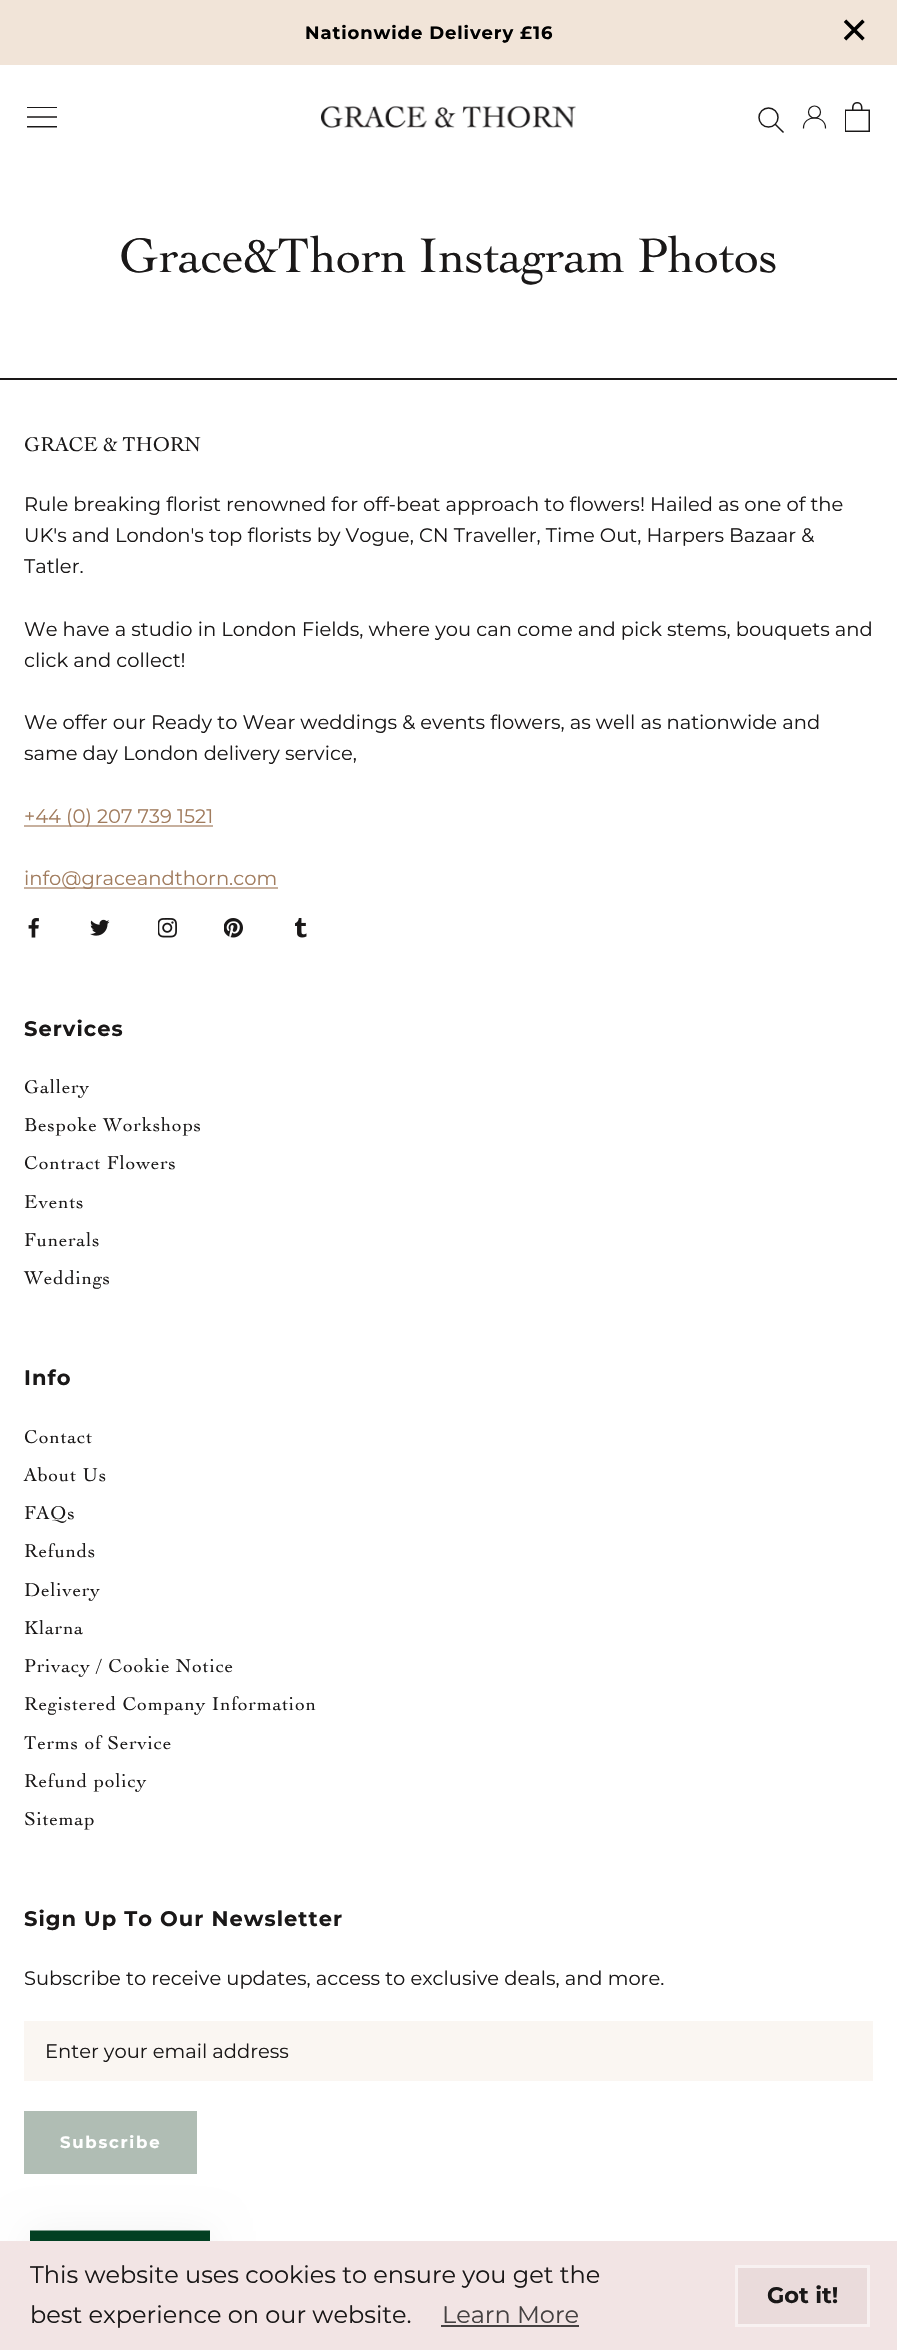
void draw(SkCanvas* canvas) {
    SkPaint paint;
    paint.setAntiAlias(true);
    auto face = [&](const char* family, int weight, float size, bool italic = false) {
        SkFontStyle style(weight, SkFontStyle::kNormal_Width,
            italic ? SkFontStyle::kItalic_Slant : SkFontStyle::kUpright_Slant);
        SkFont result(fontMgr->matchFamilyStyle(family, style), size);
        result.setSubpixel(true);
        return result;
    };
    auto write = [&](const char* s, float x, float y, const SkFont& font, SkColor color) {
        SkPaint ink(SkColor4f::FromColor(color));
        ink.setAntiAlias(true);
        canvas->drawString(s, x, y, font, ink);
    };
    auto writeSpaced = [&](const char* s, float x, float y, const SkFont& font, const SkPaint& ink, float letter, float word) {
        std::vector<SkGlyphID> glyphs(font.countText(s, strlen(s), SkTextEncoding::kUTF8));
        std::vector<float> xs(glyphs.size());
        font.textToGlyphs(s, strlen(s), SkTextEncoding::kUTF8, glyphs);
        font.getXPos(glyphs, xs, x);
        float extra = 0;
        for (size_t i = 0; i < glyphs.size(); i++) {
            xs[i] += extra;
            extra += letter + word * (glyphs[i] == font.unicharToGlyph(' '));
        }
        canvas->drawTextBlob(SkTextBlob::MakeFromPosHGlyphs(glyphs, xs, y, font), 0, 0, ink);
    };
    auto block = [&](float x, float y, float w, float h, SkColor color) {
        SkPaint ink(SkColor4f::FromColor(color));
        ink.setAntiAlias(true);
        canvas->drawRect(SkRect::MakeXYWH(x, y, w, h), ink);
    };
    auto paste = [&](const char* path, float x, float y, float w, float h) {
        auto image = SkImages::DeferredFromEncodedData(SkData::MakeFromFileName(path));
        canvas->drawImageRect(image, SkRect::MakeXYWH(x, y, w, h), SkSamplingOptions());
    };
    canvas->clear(SK_ColorWHITE);
    block(0, 0, 897, 65, SkColorSetRGB(241, 228, 216));
    auto kFont1 = face("Montserrat", 700, 18);
    paint.setColor(SK_ColorBLACK);
    writeSpaced("Nationwide Delivery £16", 305, 39, kFont1, paint, 0.9f, 0);
    auto kFont2 = face("Montserrat", 100, 60);
    write("×", 837, 51, kFont2, SK_ColorBLACK);
    paste("pic1.png", 27, 107, 30, 21);
    paste("pic2.png", 321, 106, 255, 22);
    paint.setStyle(SkPaint::kStroke_Style);
    paint.setStrokeWidth(1.5f);
    paint.setStrokeCap(SkPaint::kSquare_Cap);
    paint.setColor(SkColorSetRGB(26, 24, 24));
    canvas->drawPath(SkPathBuilder().moveTo(783, 132).lineTo(775.5f, 124.5f).detach(), paint);
    paint.setStrokeCap(SkPaint::kButt_Cap);
    canvas->drawCircle(768.5f, 117.5f, 9.5f, paint);
    paint.setStrokeWidth(1.2f);
    paint.setStrokeCap(SkPaint::kSquare_Cap);
    canvas->drawPath(SkPathBuilder().moveTo(803.5f, 128).cubicTo(803.5f, 114.5f, 825.5f, 114.5f, 825.5f, 128).detach(), paint);
    paint.setStrokeCap(SkPaint::kButt_Cap);
    canvas->drawCircle(814.5f, 112, 6, paint);
    paste("pic3.png", 845, 102, 25, 30);
    auto kFont3 = face("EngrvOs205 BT", 400, 51);
    write("Grace&Thorn Instagram Photos", 119, 272, kFont3, SkColorSetRGB(26, 24, 24));
    block(0, 378, 897, 2, SkColorSetRGB(26, 24, 24));
    auto kFont4 = face("EngrvOs205 BT", 400, 21);
    write("GRACE & THORN", 24, 451, kFont4, SkColorSetRGB(26, 24, 24));
    auto kFont5 = face("Montserrat", 100, 19.5f);
    write("Rule breaking florist renowned for off-beat approach to flowers! Hailed as one of the", 24, 511, kFont5, SkColorSetRGB(26, 24, 24));
    write("UK's and London's top florists by Vogue, CN Traveller, Time Out, Harpers Bazaar &", 24, 542, kFont5, SkColorSetRGB(26, 24, 24));
    write("Tatler.", 24, 573, kFont5, SkColorSetRGB(26, 24, 24));
    write("We have a studio in London Fields, where you can come and pick stems, bouquets and", 24, 636, kFont5, SkColorSetRGB(26, 24, 24));
    write("click and collect!", 24, 667, kFont5, SkColorSetRGB(26, 24, 24));
    write("We offer our Ready to Wear weddings & events flowers, as well as nationwide and", 24, 729, kFont5, SkColorSetRGB(26, 24, 24));
    write("same day London delivery service,", 24, 760, kFont5, SkColorSetRGB(26, 24, 24));
    block(24, 825, 189, 2, SkColorSetRGB(199, 176, 158));
    write("+44 (0) 207 739 1521", 24, 823, kFont5, SkColorSetRGB(161, 124, 94));
    block(24, 887, 254, 2, SkColorSetRGB(199, 176, 158));
    write("info@graceandthorn.com", 24, 885, kFont5, SkColorSetRGB(161, 124, 94));
    paste("pic4.png", 28, 918, 11, 20);
    paste("pic5.png", 90, 919, 20, 17);
    paste("pic6.png", 158, 918, 19, 20);
    paste("pic7.png", 224, 918, 19, 20);
    paste("pic8.png", 295, 918, 12, 20);
    auto kFont6 = face("Montserrat", 700, 21);
    paint.setStyle(SkPaint::kFill_Style);
    writeSpaced("Services", 24, 1036, kFont6, paint, 1.05f, 0);
    auto kFont7 = face("EngrvOs205 BT", 400, 19.5f);
    writeSpaced("Gallery", 24, 1093, kFont7, paint, 1, 0);
    writeSpaced("Bespoke Workshops", 24, 1131, kFont7, paint, 1, 0);
    writeSpaced("Contract Flowers", 24, 1169, kFont7, paint, 1, 0);
    writeSpaced("Events", 24, 1208, kFont7, paint, 1, 0);
    writeSpaced("Funerals", 24, 1246, kFont7, paint, 1, 0);
    writeSpaced("Weddings", 24, 1284, kFont7, paint, 1, 0);
    writeSpaced("Info", 24, 1385, kFont6, paint, 1.05f, 0);
    writeSpaced("Contact", 24, 1443, kFont7, paint, 1, 0);
    writeSpaced("About Us", 24, 1481, kFont7, paint, 1, 0);
    writeSpaced("FAQs", 24, 1519, kFont7, paint, 1, 0);
    writeSpaced("Refunds", 24, 1557, kFont7, paint, 1, 0);
    writeSpaced("Delivery", 24, 1596, kFont7, paint, 1, 0);
    writeSpaced("Klarna", 24, 1634, kFont7, paint, 1, 0);
    writeSpaced("Privacy / Cookie Notice", 24, 1672, kFont7, paint, 1, 0);
    writeSpaced("Registered Company Information", 24, 1710, kFont7, paint, 1, 0);
    writeSpaced("Terms of Service", 24, 1749, kFont7, paint, 1, 0);
    writeSpaced("Refund policy", 24, 1787, kFont7, paint, 1, 0);
    writeSpaced("Sitemap", 24, 1825, kFont7, paint, 1, 0);
    writeSpaced("Sign Up To Our Newsletter", 24, 1926, kFont6, paint, 1.05f, 0);
    write("Subscribe to receive updates, access to exclusive deals, and more.", 24, 1985, kFont5, SkColorSetRGB(26, 24, 24));
    block(24, 2021, 849, 60, SkColorSetRGB(250, 246, 242));
    write("Enter your email address", 45, 2058, kFont5, SkColorSetRGB(26, 24, 24));
    block(24, 2111, 173, 63, SkColorSetRGB(176, 189, 180));
    auto kFont8 = face("Montserrat", 700, 16.5f);
    paint.setColor(SK_ColorWHITE);
    writeSpaced("Subscribe", 60, 2148, kFont8, paint, 1.75f, 0);
    paint.setColor(SkColorSetARGB(13, 0, 0, 0));
    paint.setMaskFilter(SkMaskFilter::MakeBlur(kNormal_SkBlurStyle, 19));
    canvas->drawRect(SkRect::MakeXYWH(30, 2231, 180, 90), paint);
    paint.setMaskFilter(nullptr);
    paste("pic9.png", 30, 2230, 180, 11);
    block(0, 2241, 897, 109, SkColorSetRGB(242, 228, 228));
    auto kFont9 = face("Montserrat", 100, 24);
    write("This website uses cookies to ensure you get the", 30, 2283, kFont9, SkColorSetRGB(26, 24, 24));
    write("best experience on our website.", 30, 2323, kFont9, SkColorSetRGB(26, 24, 24));
    write("Learn More", 442, 2323, kFont9, SkColorSetRGB(69, 65, 65));
    block(441, 2325, 138, 2, SkColorSetRGB(69, 65, 65));
    paint.setColor(SkColorSetRGB(234, 219, 219));
    canvas->drawRect(SkRect::MakeXYWH(736.5f, 2266.5f, 132, 59), paint);
    paint.setStyle(SkPaint::kStroke_Style);
    paint.setStrokeWidth(3);
    paint.setColor(SkColorSetRGB(248, 241, 241));
    canvas->drawRect(SkRect::MakeXYWH(736.5f, 2266.5f, 132, 59), paint);
    auto kFont10 = face("Montserrat", 700, 22.5f);
    write("Got it!", 767, 2303, kFont10, SkColorSetRGB(26, 24, 24));
}
